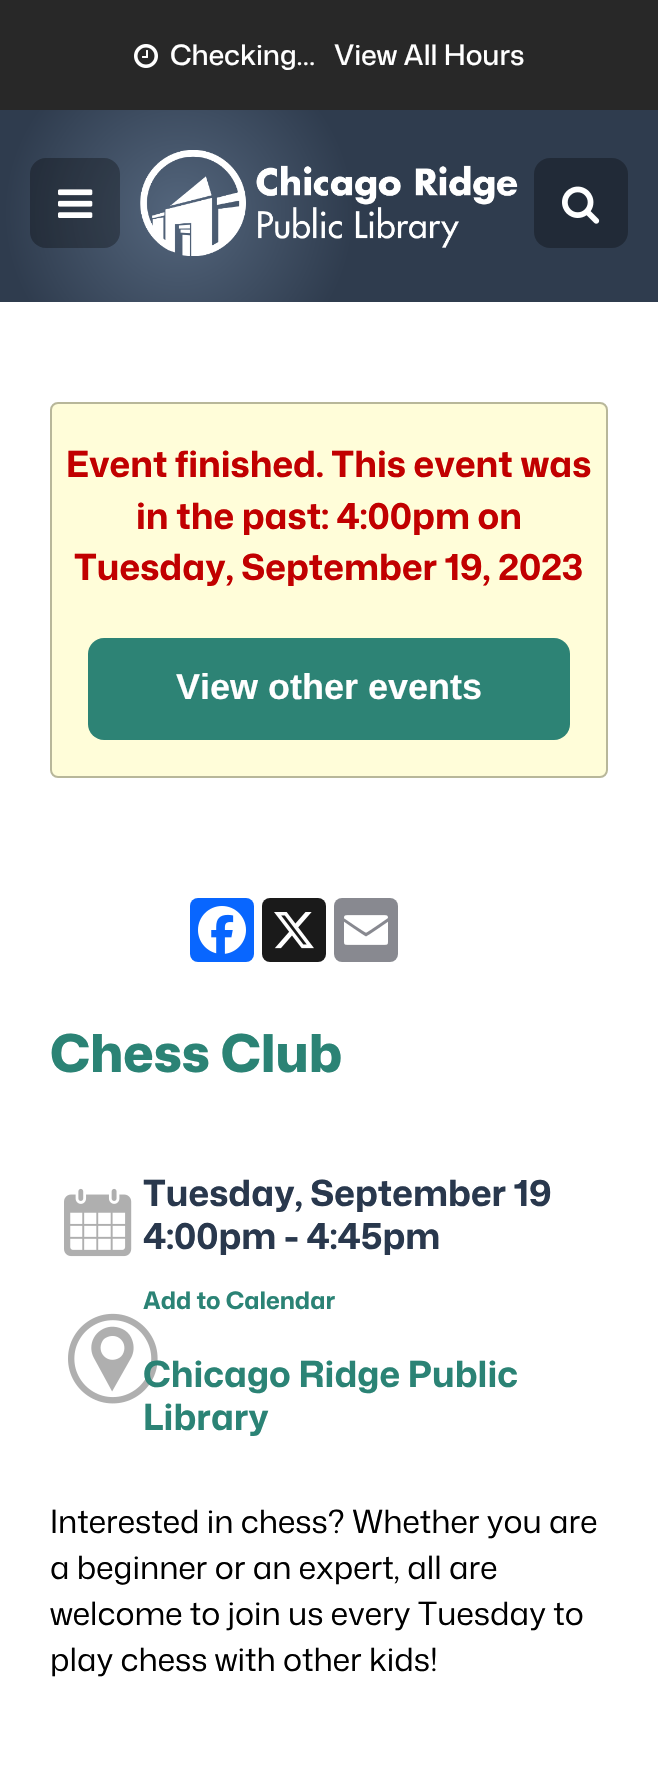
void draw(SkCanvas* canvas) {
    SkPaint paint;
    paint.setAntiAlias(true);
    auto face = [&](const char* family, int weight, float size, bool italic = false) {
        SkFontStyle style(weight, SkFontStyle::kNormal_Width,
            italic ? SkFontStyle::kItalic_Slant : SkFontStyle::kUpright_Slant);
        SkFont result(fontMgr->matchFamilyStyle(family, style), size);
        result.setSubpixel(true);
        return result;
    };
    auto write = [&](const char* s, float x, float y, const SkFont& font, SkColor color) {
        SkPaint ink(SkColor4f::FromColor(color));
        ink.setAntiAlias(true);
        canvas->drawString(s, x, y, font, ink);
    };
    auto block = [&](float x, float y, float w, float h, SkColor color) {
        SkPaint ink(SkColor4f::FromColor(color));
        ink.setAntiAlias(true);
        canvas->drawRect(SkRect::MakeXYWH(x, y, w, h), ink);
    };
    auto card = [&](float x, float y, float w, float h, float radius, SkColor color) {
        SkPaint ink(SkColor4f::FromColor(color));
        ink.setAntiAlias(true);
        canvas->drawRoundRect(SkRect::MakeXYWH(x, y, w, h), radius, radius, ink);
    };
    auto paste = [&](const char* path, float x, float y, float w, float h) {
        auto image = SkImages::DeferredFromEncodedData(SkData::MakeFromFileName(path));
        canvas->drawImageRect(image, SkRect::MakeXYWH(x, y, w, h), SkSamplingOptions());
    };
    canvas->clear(SK_ColorWHITE);
    block(0, 0, 658, 110, SkColorSetRGB(40, 40, 40));
    paste("pic1.png", 134, 44, 24, 24);
    auto kFont1 = face("Mona Sans", 500, 28);
    write("Checking…", 170, 65, kFont1, SK_ColorWHITE);
    write("View All Hours", 334, 65, kFont1, SK_ColorWHITE);
    {
        const SkColor colors[] = {SkColorSetRGB(84, 102, 125), SkColorSetRGB(47, 60, 78)};
        const float stops[] = {0, 0.32f};
        paint.setShader(SkGradientShader::MakeRadial({179, 213}, 547, colors, stops, 2, SkTileMode::kClamp));
        paint.setAlpha(255);
    }
    canvas->drawRect(SkRect::MakeXYWH(0, 110, 658, 192), paint);
    card(30, 158, 90, 90, 16, SkColorSetARGB(77, 0, 0, 0));
    paste("pic2.png", 58, 189, 35, 29);
    paste("pic3.png", 140, 150, 378, 106);
    card(534, 158, 94, 90, 16, SkColorSetRGB(33, 42, 55));
    paste("pic4.png", 562, 186, 38, 38);
    paint.setShader(nullptr);
    paint.setColor(SkColorSetRGB(255, 253, 217));
    canvas->drawRoundRect(SkRect::MakeXYWH(51, 403, 556, 374), 7, 7, paint);
    paint.setStyle(SkPaint::kStroke_Style);
    paint.setStrokeWidth(2);
    paint.setColor(SkColorSetRGB(184, 183, 154));
    canvas->drawRoundRect(SkRect::MakeXYWH(51, 403, 556, 374), 7, 7, paint);
    auto kFont2 = face("Mona Sans", 700, 36);
    write("Event finished. This event was", 66, 477, kFont2, SkColorSetRGB(193, 0, 0));
    write("in the past: 4:00pm on", 136, 529, kFont2, SkColorSetRGB(193, 0, 0));
    write("Tuesday, September 19, 2023", 74, 580, kFont2, SkColorSetRGB(193, 0, 0));
    card(88, 638, 482, 102, 16, SkColorSetRGB(45, 131, 117));
    auto kFont3 = face("Liberation Sans", 700, 36);
    write("View other events", 176, 699, kFont3, SK_ColorWHITE);
    card(190, 898, 64, 64, 8, SkColorSetRGB(8, 102, 255));
    paste("pic5.png", 198, 906, 48, 48);
    card(262, 898, 64, 64, 8, SkColorSetRGB(26, 26, 26));
    paste("pic6.png", 274, 912, 40, 37);
    card(334, 898, 64, 64, 8, SkColorSetRGB(136, 137, 144));
    paste("pic7.png", 344, 915, 44, 30);
    auto kFont4 = face("Mona Sans", 800, 52);
    write("Chess Club", 50, 1072, kFont4, SkColorSetRGB(43, 131, 117));
    paste("pic8.png", 64, 1188, 68, 69);
    write("Tuesday, September 19", 143, 1206, kFont2, SkColorSetRGB(41, 56, 77));
    write("4:00pm - 4:45pm", 143, 1249, kFont2, SkColorSetRGB(41, 56, 77));
    auto kFont5 = face("Mona Sans", 700, 24);
    write("Add to Calendar", 143, 1309, kFont5, SkColorSetRGB(43, 131, 117));
    paste("pic9.png", 68, 1313, 90, 91);
    write("Chicago Ridge Public", 143, 1387, kFont2, SkColorSetRGB(43, 131, 117));
    write("Library", 143, 1430, kFont2, SkColorSetRGB(43, 131, 117));
    auto kFont6 = face("Mona Sans", 400, 32);
    write("Interested in chess? Whether you are", 50, 1533, kFont6, SK_ColorBLACK);
    write("a beginner or an expert, all are", 50, 1579, kFont6, SK_ColorBLACK);
    write("welcome to join us every Tuesday to", 50, 1625, kFont6, SK_ColorBLACK);
    write("play chess with other kids!", 50, 1671, kFont6, SK_ColorBLACK);
}
